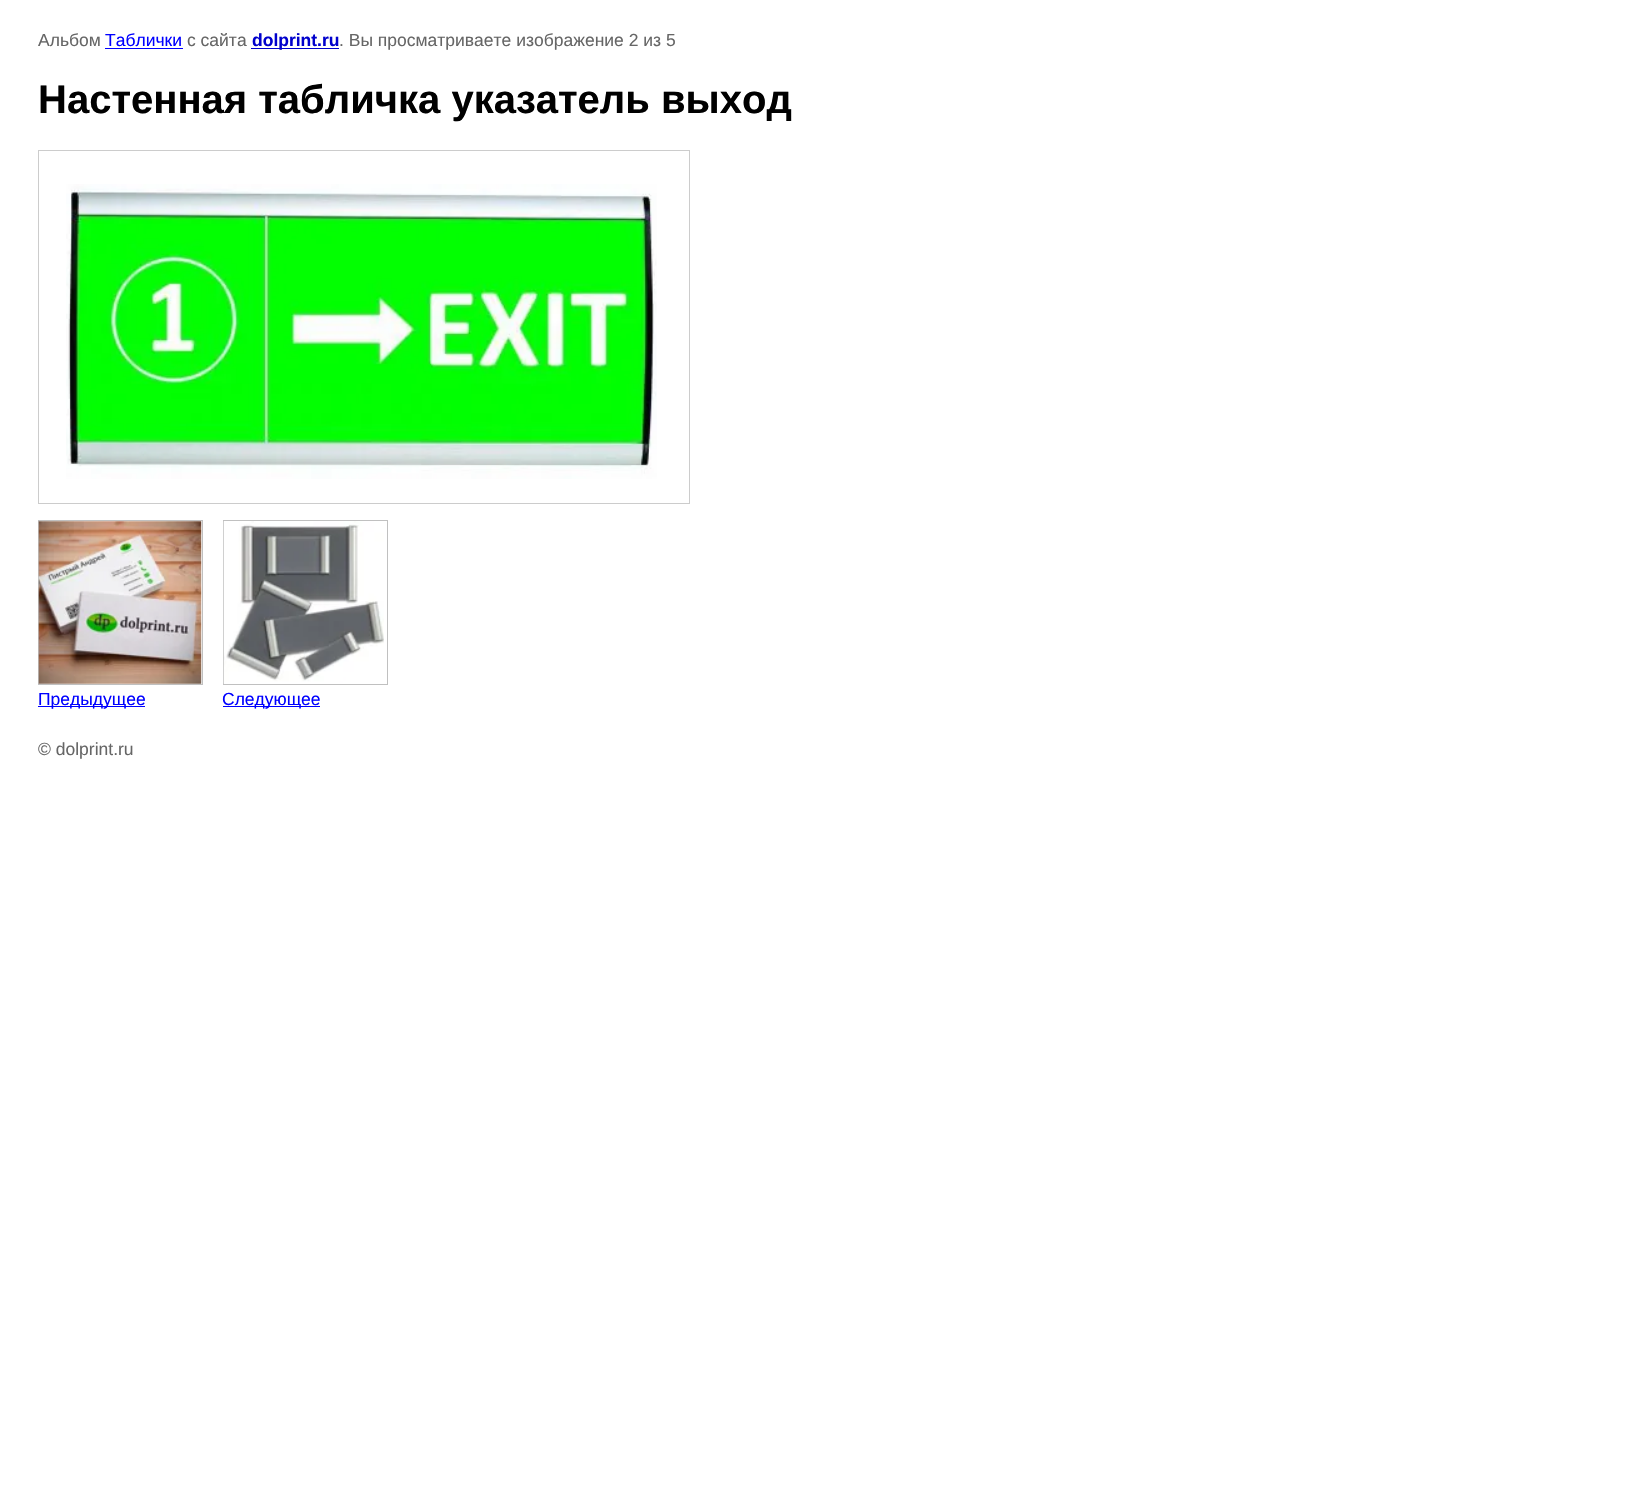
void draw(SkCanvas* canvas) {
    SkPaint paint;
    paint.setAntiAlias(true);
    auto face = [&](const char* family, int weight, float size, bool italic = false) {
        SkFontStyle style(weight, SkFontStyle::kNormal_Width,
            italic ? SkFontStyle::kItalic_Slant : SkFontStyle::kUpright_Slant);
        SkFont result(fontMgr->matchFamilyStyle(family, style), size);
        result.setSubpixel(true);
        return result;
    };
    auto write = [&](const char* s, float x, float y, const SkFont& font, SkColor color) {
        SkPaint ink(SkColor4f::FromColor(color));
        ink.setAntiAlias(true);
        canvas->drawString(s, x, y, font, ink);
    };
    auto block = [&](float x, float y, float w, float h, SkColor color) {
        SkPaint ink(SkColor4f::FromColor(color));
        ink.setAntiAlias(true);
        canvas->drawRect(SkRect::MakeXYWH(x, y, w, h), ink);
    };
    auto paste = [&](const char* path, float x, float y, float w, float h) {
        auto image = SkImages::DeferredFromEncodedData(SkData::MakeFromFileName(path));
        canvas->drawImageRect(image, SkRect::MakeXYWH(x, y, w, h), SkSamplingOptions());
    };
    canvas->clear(SK_ColorWHITE);
    auto kFont1 = face("Liberation Sans", 400, 17.5f);
    write("Альбом", 38, 46, kFont1, SkColorSetRGB(102, 102, 102));
    write("Таблички", 105, 46, kFont1, SkColorSetRGB(0, 0, 255));
    block(105, 48, 78, 1, SkColorSetRGB(0, 0, 255));
    write("с сайта", 187, 46, kFont1, SkColorSetRGB(102, 102, 102));
    block(251, 48, 88, 1, SkColorSetRGB(0, 0, 204));
    auto kFont2 = face("Liberation Sans", 700, 17.5f);
    write("dolprint.ru", 252, 46, kFont2, SkColorSetRGB(0, 0, 204));
    write(". Вы просматриваете изображение 2 из 5", 339, 46, kFont1, SkColorSetRGB(102, 102, 102));
    auto kFont3 = face("Liberation Sans", 700, 40);
    write("Настенная табличка указатель выход", 38, 113, kFont3, SK_ColorBLACK);
    paint.setStyle(SkPaint::kStroke_Style);
    paint.setStrokeWidth(1);
    paint.setColor(SkColorSetRGB(204, 204, 204));
    canvas->drawRect(SkRect::MakeXYWH(38.5f, 150.5f, 651, 353), paint);
    paste("pic1.png", 66, 184, 591, 295);
    paint.setColor(SkColorSetRGB(192, 192, 192));
    canvas->drawRect(SkRect::MakeXYWH(38.5f, 520.5f, 164, 164), paint);
    paste("pic2.png", 38, 521, 164, 163);
    block(38, 706, 107, 1, SkColorSetRGB(0, 0, 255));
    write("Предыдущее", 38, 705, kFont1, SkColorSetRGB(0, 0, 255));
    canvas->drawRect(SkRect::MakeXYWH(223.5f, 520.5f, 164, 164), paint);
    paste("pic3.png", 223, 521, 161, 163);
    block(223, 706, 97, 1, SkColorSetRGB(0, 0, 255));
    write("Следующее", 222, 705, kFont1, SkColorSetRGB(0, 0, 255));
    write("© dolprint.ru", 38, 755, kFont1, SkColorSetRGB(102, 102, 102));
}
